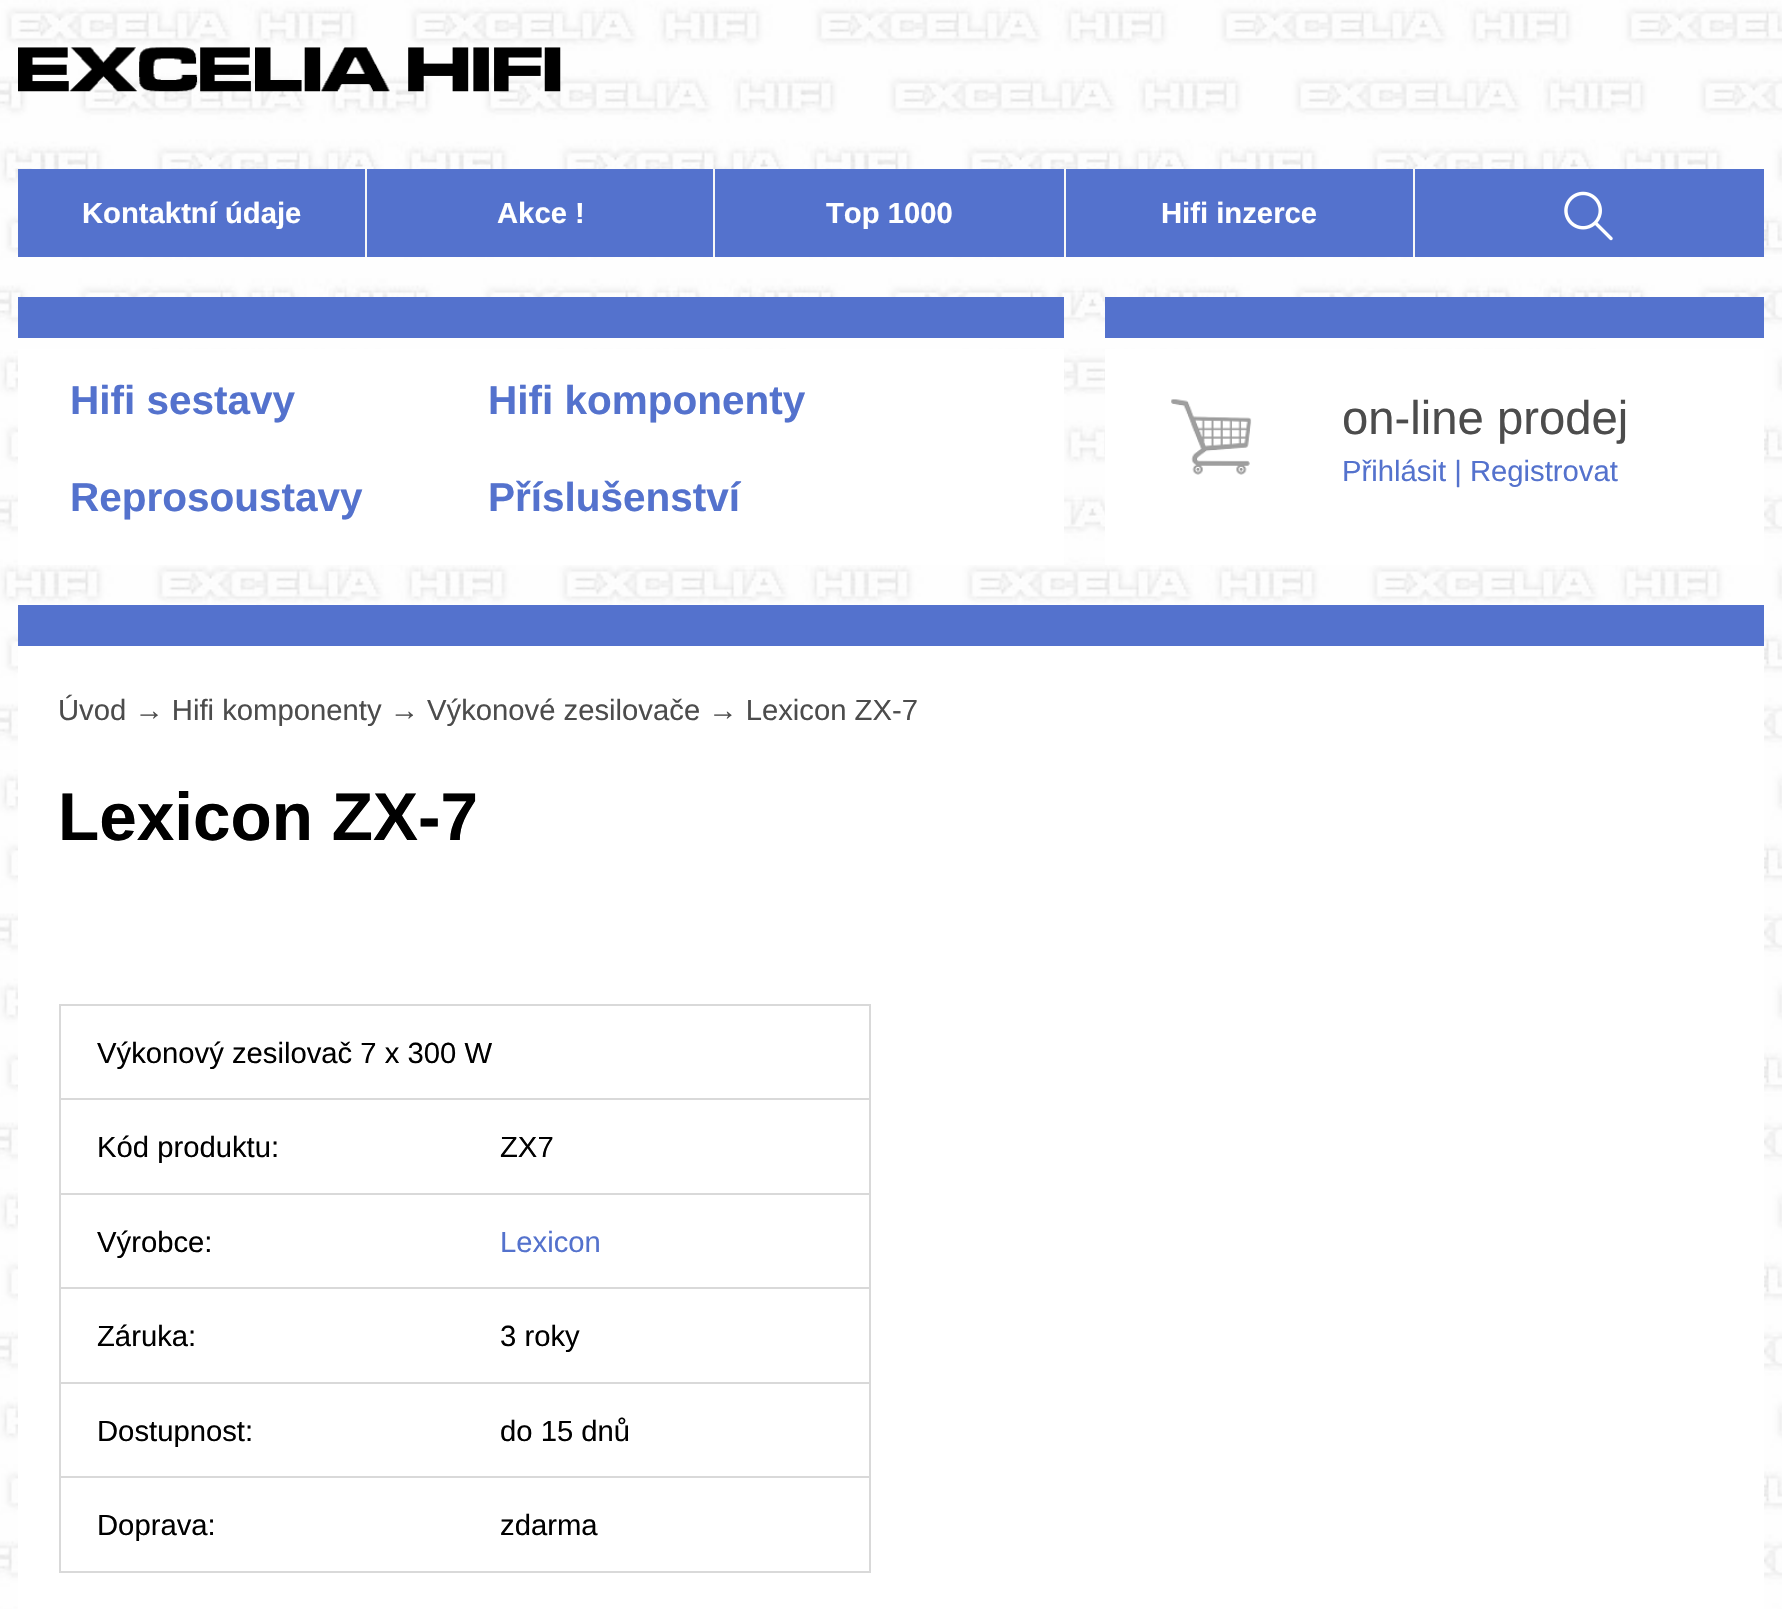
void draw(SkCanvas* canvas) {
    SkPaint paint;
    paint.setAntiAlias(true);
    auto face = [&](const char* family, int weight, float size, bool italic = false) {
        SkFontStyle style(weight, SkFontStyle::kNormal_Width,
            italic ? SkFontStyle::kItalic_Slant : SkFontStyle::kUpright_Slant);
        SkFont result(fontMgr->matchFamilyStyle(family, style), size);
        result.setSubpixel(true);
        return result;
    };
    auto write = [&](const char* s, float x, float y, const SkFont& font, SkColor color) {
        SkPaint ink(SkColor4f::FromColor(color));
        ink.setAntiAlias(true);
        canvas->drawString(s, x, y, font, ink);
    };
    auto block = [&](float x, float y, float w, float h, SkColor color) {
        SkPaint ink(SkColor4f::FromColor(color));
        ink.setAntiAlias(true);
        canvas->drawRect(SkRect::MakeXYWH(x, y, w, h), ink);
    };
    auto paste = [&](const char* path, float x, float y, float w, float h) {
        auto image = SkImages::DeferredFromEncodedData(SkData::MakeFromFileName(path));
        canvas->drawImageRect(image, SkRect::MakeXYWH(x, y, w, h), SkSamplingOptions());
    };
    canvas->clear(SK_ColorWHITE);
    paste("pic1.png", 0, 0, 1782, 1609);
    paste("pic2.png", 18, 47, 543, 45);
    block(18, 169, 1746, 88, SkColorSetRGB(84, 114, 205));
    block(365, 169, 2, 88, SkColorSetRGB(247, 247, 247));
    auto kFont1 = face("Liberation Sans", 700, 29.25f);
    write("Kontaktní údaje", 82, 223, kFont1, SK_ColorWHITE);
    block(713, 169, 2, 88, SkColorSetRGB(247, 247, 247));
    write("Akce !", 497, 223, kFont1, SK_ColorWHITE);
    block(1064, 169, 2, 88, SkColorSetRGB(247, 247, 247));
    write("Top 1000", 826, 223, kFont1, SK_ColorWHITE);
    block(1413, 169, 2, 88, SkColorSetRGB(247, 247, 247));
    write("Hifi inzerce", 1161, 223, kFont1, SK_ColorWHITE);
    paste("pic3.png", 1564, 191, 49, 50);
    block(18, 349, 1046, 216, SK_ColorWHITE);
    block(18, 297, 1046, 41, SkColorSetRGB(84, 114, 205));
    auto kFont2 = face("Liberation Sans", 700, 40.5f);
    write("Hifi sestavy", 70, 414, kFont2, SkColorSetRGB(84, 114, 205));
    write("Hifi komponenty", 488, 414, kFont2, SkColorSetRGB(84, 114, 205));
    write("Reprosoustavy", 70, 511, kFont2, SkColorSetRGB(84, 114, 205));
    write("Příslušenství", 488, 511, kFont2, SkColorSetRGB(84, 114, 205));
    block(1105, 349, 659, 216, SK_ColorWHITE);
    block(1105, 297, 659, 41, SkColorSetRGB(84, 114, 205));
    paste("pic4.png", 1171, 399, 81, 76);
    auto kFont3 = face("Liberation Sans", 400, 47.25f);
    write("on-line prodej", 1342, 434, kFont3, SkColorSetRGB(76, 76, 76));
    auto kFont4 = face("Liberation Sans", 400, 29.25f);
    write("Přihlásit | Registrovat", 1342, 481, kFont4, SkColorSetRGB(84, 114, 205));
    block(18, 646, 1746, 963, SK_ColorWHITE);
    block(18, 605, 1746, 41, SkColorSetRGB(84, 114, 205));
    write("Úvod → Hifi komponenty → Výkonové zesilovače → Lexicon ZX-7", 58, 720, kFont4, SkColorSetRGB(76, 76, 76));
    auto kFont5 = face("Liberation Sans", 700, 67.5f);
    write("Lexicon ZX-7", 58, 840, kFont5, SK_ColorBLACK);
    block(59, 1004, 812, 2, SkColorSetRGB(217, 217, 217));
    block(869, 1004, 2, 569, SkColorSetRGB(217, 217, 217));
    block(59, 1571, 812, 2, SkColorSetRGB(217, 217, 217));
    block(59, 1004, 2, 569, SkColorSetRGB(217, 217, 217));
    block(59, 1098, 812, 2, SkColorSetRGB(217, 217, 217));
    write("Výkonový zesilovač 7 x 300 W", 97, 1063, kFont4, SK_ColorBLACK);
    write("Kód produktu:", 97, 1157, kFont4, SK_ColorBLACK);
    block(59, 1193, 812, 2, SkColorSetRGB(217, 217, 217));
    write("ZX7", 500, 1157, kFont4, SK_ColorBLACK);
    write("Výrobce:", 97, 1252, kFont4, SK_ColorBLACK);
    block(59, 1287, 812, 2, SkColorSetRGB(217, 217, 217));
    write("Lexicon", 500, 1252, kFont4, SkColorSetRGB(84, 114, 205));
    write("Záruka:", 97, 1346, kFont4, SK_ColorBLACK);
    block(59, 1382, 812, 2, SkColorSetRGB(217, 217, 217));
    write("3 roky", 500, 1346, kFont4, SK_ColorBLACK);
    write("Dostupnost:", 97, 1441, kFont4, SK_ColorBLACK);
    block(59, 1476, 812, 2, SkColorSetRGB(217, 217, 217));
    write("do 15 dnů", 500, 1441, kFont4, SK_ColorBLACK);
    write("Doprava:", 97, 1535, kFont4, SK_ColorBLACK);
    write("zdarma", 500, 1535, kFont4, SK_ColorBLACK);
}
